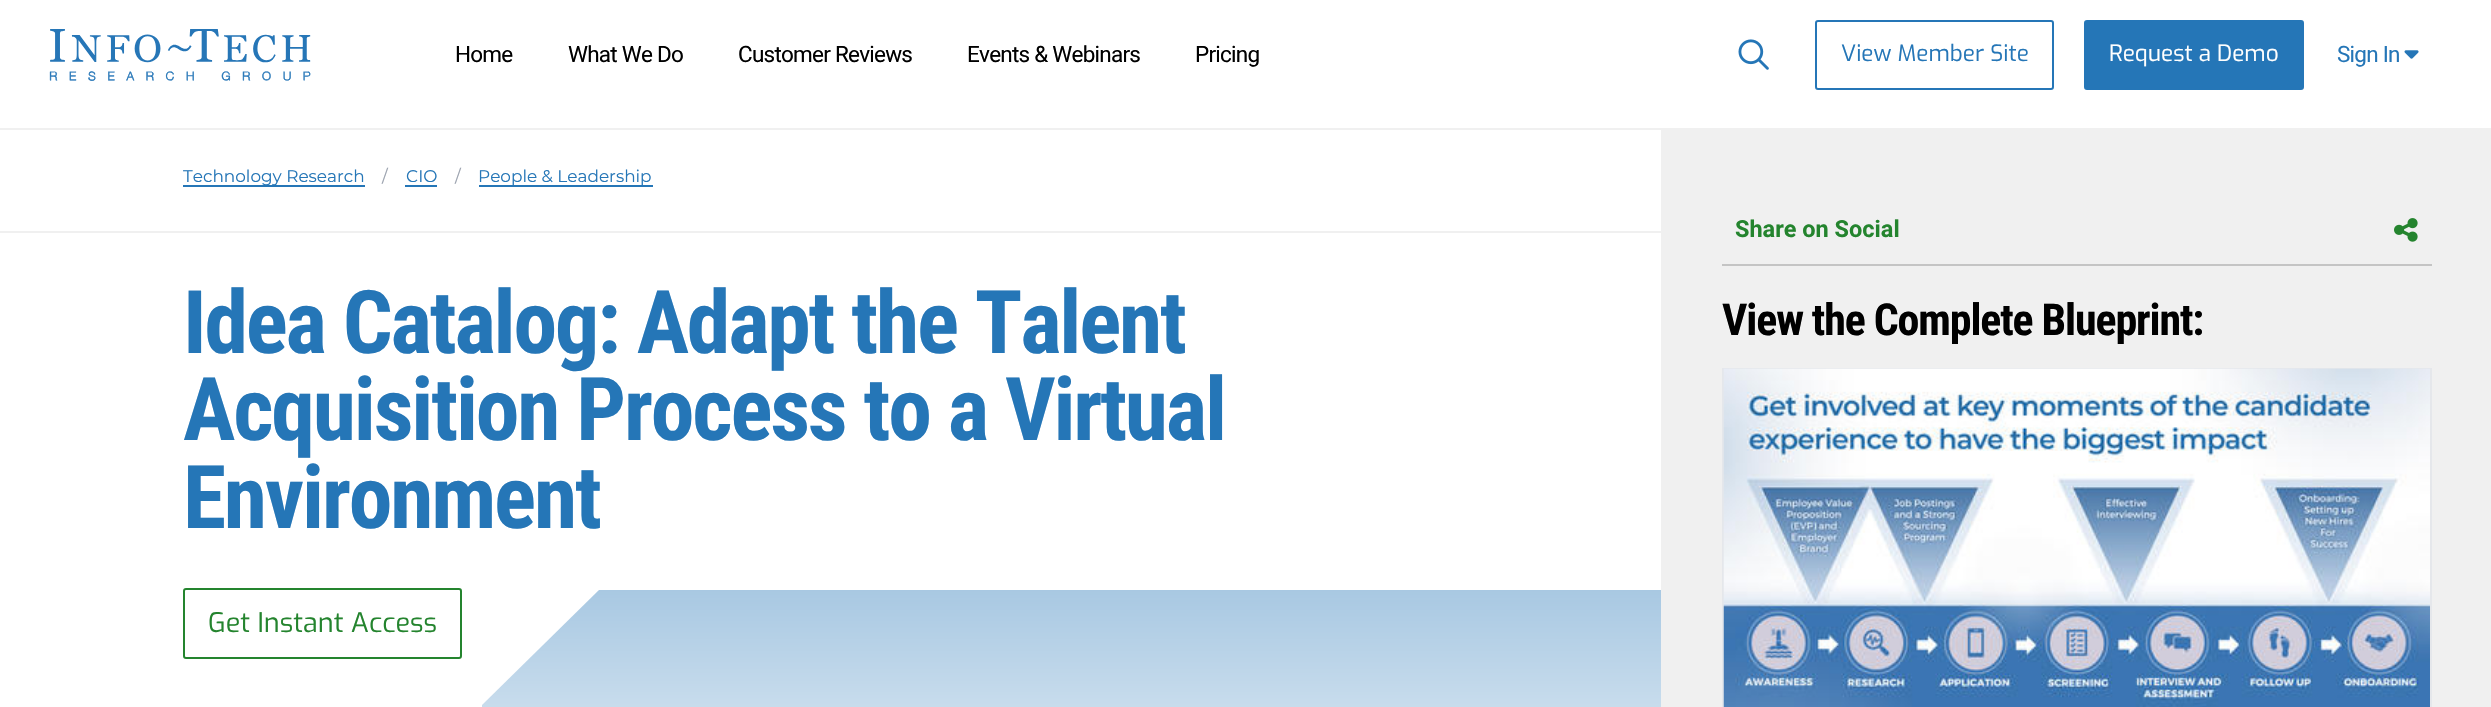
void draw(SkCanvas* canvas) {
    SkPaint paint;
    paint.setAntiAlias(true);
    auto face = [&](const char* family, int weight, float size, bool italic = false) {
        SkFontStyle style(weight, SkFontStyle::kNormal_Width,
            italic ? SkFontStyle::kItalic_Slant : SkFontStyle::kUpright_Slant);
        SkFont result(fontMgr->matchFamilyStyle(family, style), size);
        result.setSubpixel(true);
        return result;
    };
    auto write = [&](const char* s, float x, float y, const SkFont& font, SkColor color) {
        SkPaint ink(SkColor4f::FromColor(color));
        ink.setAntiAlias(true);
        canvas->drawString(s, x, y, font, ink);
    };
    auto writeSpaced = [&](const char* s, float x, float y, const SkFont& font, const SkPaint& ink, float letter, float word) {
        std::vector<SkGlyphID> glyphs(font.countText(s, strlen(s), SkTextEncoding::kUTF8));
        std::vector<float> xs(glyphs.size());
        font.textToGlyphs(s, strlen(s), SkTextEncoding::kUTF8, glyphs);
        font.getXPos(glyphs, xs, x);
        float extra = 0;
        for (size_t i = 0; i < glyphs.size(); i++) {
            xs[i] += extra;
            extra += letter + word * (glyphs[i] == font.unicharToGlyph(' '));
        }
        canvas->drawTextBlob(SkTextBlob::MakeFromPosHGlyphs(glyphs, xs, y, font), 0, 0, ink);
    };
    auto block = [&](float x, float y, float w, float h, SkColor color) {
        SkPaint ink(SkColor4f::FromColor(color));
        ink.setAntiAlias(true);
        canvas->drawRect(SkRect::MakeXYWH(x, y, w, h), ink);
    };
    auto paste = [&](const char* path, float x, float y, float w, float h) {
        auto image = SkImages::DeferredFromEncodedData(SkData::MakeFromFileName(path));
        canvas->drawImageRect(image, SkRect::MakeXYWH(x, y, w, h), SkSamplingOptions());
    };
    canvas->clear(SK_ColorWHITE);
    paste("pic1.png", 49, 29, 262, 52);
    auto kFont1 = face("Roboto", 400, 22.5f);
    paint.setColor(SK_ColorBLACK);
    writeSpaced("Home", 455, 62, kFont1, paint, -0.75f, 0);
    writeSpaced("What We Do", 568, 62, kFont1, paint, -0.75f, 0);
    writeSpaced("Customer Reviews", 738, 62, kFont1, paint, -0.75f, 0);
    writeSpaced("Events & Webinars", 967, 62, kFont1, paint, -0.75f, 0);
    writeSpaced("Pricing", 1195, 62, kFont1, paint, -0.75f, 0);
    paste("pic2.png", 1738, 39, 31, 31);
    paint.setStyle(SkPaint::kStroke_Style);
    paint.setStrokeWidth(2);
    paint.setColor(SkColorSetRGB(37, 118, 183));
    canvas->drawRoundRect(SkRect::MakeXYWH(1816, 21, 237, 68), 2, 2, paint);
    auto kFont2 = face("Exo", 400, 22.5f);
    write("View Member Site", 1841, 61, kFont2, SkColorSetRGB(37, 118, 183));
    paint.setStyle(SkPaint::kFill_Style);
    canvas->drawRoundRect(SkRect::MakeXYWH(2085, 21, 218, 68), 2, 2, paint);
    paint.setStyle(SkPaint::kStroke_Style);
    canvas->drawRoundRect(SkRect::MakeXYWH(2085, 21, 218, 68), 2, 2, paint);
    write("Request a Demo", 2109, 61, kFont2, SK_ColorWHITE);
    paint.setStyle(SkPaint::kFill_Style);
    writeSpaced("Sign In", 2337, 62, kFont1, paint, -0.75f, 0);
    paste("pic3.png", 2404, 50, 15, 9);
    block(0, 128, 2491, 2, SkColorSetRGB(240, 240, 240));
    block(0, 231, 1661, 2, SkColorSetRGB(240, 240, 240));
    block(183, 185, 182, 2, SkColorSetRGB(37, 118, 183));
    auto kFont3 = face("Montserrat", 100, 16.9f);
    write("Technology Research", 183, 182, kFont3, SkColorSetRGB(37, 118, 183));
    write("/", 382, 182, kFont3, SkColorSetRGB(156, 163, 175));
    write("CIO", 406, 182, kFont3, SkColorSetRGB(37, 118, 183));
    block(405, 185, 32, 2, SkColorSetRGB(37, 118, 183));
    write("/", 455, 182, kFont3, SkColorSetRGB(156, 163, 175));
    block(479, 185, 174, 2, SkColorSetRGB(37, 118, 183));
    write("People & Leadership", 478, 182, kFont3, SkColorSetRGB(37, 118, 183));
    auto kFont4 = face("Roboto Condensed", 700, 87.75f);
    writeSpaced("Idea Catalog: Adapt the Talent", 183, 353, kFont4, paint, -2.2f, 0);
    writeSpaced("Acquisition Process to a Virtual", 183, 440, kFont4, paint, -2.2f, 0);
    writeSpaced("Environment", 183, 528, kFont4, paint, -2.2f, 0);
    paint.setStyle(SkPaint::kStroke_Style);
    paint.setColor(SkColorSetRGB(36, 132, 46));
    canvas->drawRoundRect(SkRect::MakeXYWH(184, 589, 277, 69), 2, 2, paint);
    auto kFont5 = face("Exo", 400, 27);
    write("Get Instant Access", 208, 632, kFont5, SkColorSetRGB(36, 132, 46));
    paint.setStyle(SkPaint::kFill_Style);
    {
        const SkColor colors[] = {SkColorSetRGB(168, 200, 226), SK_ColorWHITE};
        const float stops[] = {0, 1};
        const SkPoint ends[] = {{830, 589}, {830, 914}};
        paint.setShader(SkGradientShader::MakeLinear(ends, colors, stops, 2, SkTileMode::kClamp));
        paint.setAlpha(255);
    }
    canvas->drawRect(SkRect::MakeXYWH(482, 590, 1179, 117), paint);
    paint.setShader(nullptr);
    paint.setColor(SK_ColorWHITE);
    canvas->drawPath(SkPathBuilder().moveTo(600, 588).lineTo(481, 588).lineTo(481, 706).lineTo(600, 589).close().detach(), paint);
    block(1661, 130, 830, 577, SkColorSetRGB(240, 240, 240));
    block(1722, 264, 710, 2, SkColorSetRGB(196, 196, 196));
    auto kFont6 = face("Roboto", 700, 23.5f);
    write("Share on Social", 1735, 237, kFont6, SkColorSetRGB(36, 132, 46));
    paste("pic4.png", 2394, 218, 24, 24);
    auto kFont7 = face("Roboto Condensed", 700, 43.9f);
    paint.setColor(SK_ColorBLACK);
    writeSpaced("View the Complete Blueprint:", 1722, 335, kFont7, paint, -1.1f, 0);
    paint.setStyle(SkPaint::kStroke_Style);
    paint.setColor(SkColorSetRGB(229, 231, 235));
    canvas->drawRect(SkRect::MakeXYWH(1723, 369, 708, 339), paint);
    paste("pic5.png", 1723, 368, 707, 339);
}
